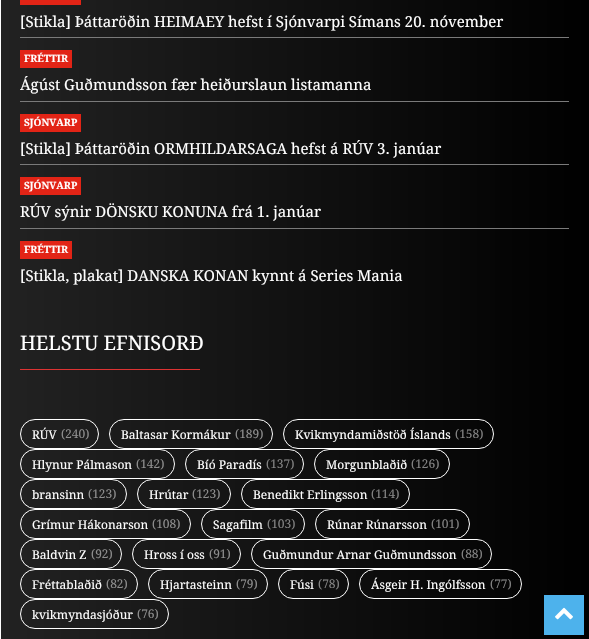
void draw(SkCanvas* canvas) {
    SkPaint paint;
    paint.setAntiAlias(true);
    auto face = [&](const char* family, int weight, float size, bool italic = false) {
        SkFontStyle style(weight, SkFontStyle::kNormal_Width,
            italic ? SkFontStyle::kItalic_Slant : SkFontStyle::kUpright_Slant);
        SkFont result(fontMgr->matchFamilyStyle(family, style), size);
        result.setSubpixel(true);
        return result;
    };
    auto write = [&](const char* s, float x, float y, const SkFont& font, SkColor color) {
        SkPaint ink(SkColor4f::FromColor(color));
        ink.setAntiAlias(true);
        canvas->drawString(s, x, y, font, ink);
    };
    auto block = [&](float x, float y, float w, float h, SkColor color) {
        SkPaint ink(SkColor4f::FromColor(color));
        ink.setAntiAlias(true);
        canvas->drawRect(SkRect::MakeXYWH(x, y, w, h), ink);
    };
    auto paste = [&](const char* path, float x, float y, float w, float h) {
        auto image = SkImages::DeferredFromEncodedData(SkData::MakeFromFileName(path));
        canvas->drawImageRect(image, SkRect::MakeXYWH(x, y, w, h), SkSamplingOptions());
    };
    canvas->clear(SK_ColorWHITE);
    {
        const SkColor colors[] = {SK_ColorBLACK, SkColorSetRGB(34, 34, 34)};
        const float stops[] = {0, 1};
        const SkPoint ends[] = {{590, 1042}, {0.5f, 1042}};
        paint.setShader(SkGradientShader::MakeLinear(ends, colors, stops, 2, SkTileMode::kClamp));
        paint.setAlpha(255);
    }
    canvas->drawRect(SkRect::MakeXYWH(1, 0, 588, 639), paint);
    block(20, 0, 61, 5, SkColorSetRGB(226, 36, 22));
    auto kFont1 = face("Droid Serif", 400, 15);
    write("[Stikla] Þáttaröðin HEIMAEY hefst í Sjónvarpi Símans 20. nóvember", 20, 27, kFont1, SK_ColorWHITE);
    block(20, 37, 549, 1, SkColorSetRGB(122, 122, 122));
    block(20, 50, 52, 18, SkColorSetRGB(226, 36, 22));
    auto kFont2 = face("Droid Serif", 700, 10);
    write("FRÉTTIR", 24, 62, kFont2, SK_ColorWHITE);
    write("Ágúst Guðmundsson fær heiðurslaun listamanna", 20, 90, kFont1, SK_ColorWHITE);
    block(20, 101, 549, 1, SkColorSetRGB(122, 122, 122));
    block(20, 114, 61, 18, SkColorSetRGB(226, 36, 22));
    write("SJÓNVARP", 24, 126, kFont2, SK_ColorWHITE);
    write("[Stikla] Þáttaröðin ORMHILDARSAGA hefst á RÚV 3. janúar", 20, 154, kFont1, SK_ColorWHITE);
    block(20, 164, 549, 1, SkColorSetRGB(122, 122, 122));
    block(20, 177, 61, 18, SkColorSetRGB(226, 36, 22));
    write("SJÓNVARP", 24, 189, kFont2, SK_ColorWHITE);
    write("RÚV sýnir DÖNSKU KONUNA frá 1. janúar", 20, 217, kFont1, SK_ColorWHITE);
    block(20, 228, 549, 1, SkColorSetRGB(122, 122, 122));
    block(20, 241, 52, 18, SkColorSetRGB(226, 36, 22));
    write("FRÉTTIR", 24, 253, kFont2, SK_ColorWHITE);
    write("[Stikla, plakat] DANSKA KONAN kynnt á Series Mania", 20, 281, kFont1, SK_ColorWHITE);
    auto kFont3 = face("Droid Serif", 400, 20);
    write("HELSTU EFNISORÐ", 20, 350, kFont3, SK_ColorWHITE);
    block(20, 369, 180, 1, SkColorSetRGB(221, 51, 51));
    paint.setStyle(SkPaint::kStroke_Style);
    paint.setStrokeWidth(1);
    paint.setShader(nullptr);
    paint.setColor(SK_ColorWHITE);
    canvas->drawRoundRect(SkRect::MakeXYWH(20.5f, 419.5f, 78, 29), 14.5f, 14.5f, paint);
    auto kFont4 = face("Droid Serif", 400, 12);
    write("RÚV", 32, 439, kFont4, SK_ColorWHITE);
    write("(240)", 61, 438, kFont4, SkColorSetRGB(142, 142, 142));
    canvas->drawRoundRect(SkRect::MakeXYWH(109.5f, 419.5f, 163, 29), 14.5f, 14.5f, paint);
    write("Baltasar Kormákur", 121, 439, kFont4, SK_ColorWHITE);
    write("(189)", 235, 438, kFont4, SkColorSetRGB(142, 142, 142));
    canvas->drawRoundRect(SkRect::MakeXYWH(283.5f, 419.5f, 210, 29), 14.5f, 14.5f, paint);
    write("Kvikmyndamiðstöð Íslands", 295, 439, kFont4, SK_ColorWHITE);
    write("(158)", 455, 438, kFont4, SkColorSetRGB(131, 131, 131));
    canvas->drawRoundRect(SkRect::MakeXYWH(20.5f, 449.5f, 154, 29), 14.5f, 14.5f, paint);
    write("Hlynur Pálmason", 32, 469, kFont4, SK_ColorWHITE);
    write("(142)", 136, 468, kFont4, SkColorSetRGB(142, 142, 142));
    canvas->drawRoundRect(SkRect::MakeXYWH(185.5f, 449.5f, 118, 29), 14.5f, 14.5f, paint);
    write("Bíó Paradís", 197, 469, kFont4, SK_ColorWHITE);
    write("(137)", 266, 468, kFont4, SkColorSetRGB(131, 131, 131));
    canvas->drawRoundRect(SkRect::MakeXYWH(314.5f, 449.5f, 135, 29), 14.5f, 14.5f, paint);
    write("Morgunblaðið", 326, 469, kFont4, SK_ColorWHITE);
    write("(126)", 411, 468, kFont4, SkColorSetRGB(131, 131, 131));
    canvas->drawRoundRect(SkRect::MakeXYWH(20.5f, 479.5f, 106, 29), 14.5f, 14.5f, paint);
    write("bransinn", 32, 499, kFont4, SK_ColorWHITE);
    write("(123)", 88, 498, kFont4, SkColorSetRGB(142, 142, 142));
    canvas->drawRoundRect(SkRect::MakeXYWH(137.5f, 479.5f, 93, 29), 14.5f, 14.5f, paint);
    write("Hrútar", 149, 499, kFont4, SK_ColorWHITE);
    write("(123)", 192, 498, kFont4, SkColorSetRGB(142, 142, 142));
    canvas->drawRoundRect(SkRect::MakeXYWH(241.5f, 479.5f, 168, 29), 14.5f, 14.5f, paint);
    write("Benedikt Erlingsson", 253, 499, kFont4, SK_ColorWHITE);
    write("(114)", 371, 498, kFont4, SkColorSetRGB(131, 131, 131));
    canvas->drawRoundRect(SkRect::MakeXYWH(20.5f, 509.5f, 170, 29), 14.5f, 14.5f, paint);
    write("Grímur Hákonarson", 32, 529, kFont4, SK_ColorWHITE);
    write("(108)", 152, 528, kFont4, SkColorSetRGB(142, 142, 142));
    canvas->drawRoundRect(SkRect::MakeXYWH(201.5f, 509.5f, 103, 29), 14.5f, 14.5f, paint);
    write("Sagafilm", 213, 529, kFont4, SK_ColorWHITE);
    write("(103)", 267, 528, kFont4, SkColorSetRGB(131, 131, 131));
    canvas->drawRoundRect(SkRect::MakeXYWH(315.5f, 509.5f, 154, 29), 14.5f, 14.5f, paint);
    write("Rúnar Rúnarsson", 327, 529, kFont4, SK_ColorWHITE);
    write("(101)", 431, 528, kFont4, SkColorSetRGB(131, 131, 131));
    canvas->drawRoundRect(SkRect::MakeXYWH(20.5f, 539.5f, 101, 29), 14.5f, 14.5f, paint);
    write("Baldvin Z", 32, 559, kFont4, SK_ColorWHITE);
    write("(92)", 91, 558, kFont4, SkColorSetRGB(142, 142, 142));
    canvas->drawRoundRect(SkRect::MakeXYWH(132.5f, 539.5f, 108, 29), 14.5f, 14.5f, paint);
    write("Hross í oss", 144, 559, kFont4, SK_ColorWHITE);
    write("(91)", 209, 558, kFont4, SkColorSetRGB(142, 142, 142));
    canvas->drawRoundRect(SkRect::MakeXYWH(251.5f, 539.5f, 240, 29), 14.5f, 14.5f, paint);
    write("Guðmundur Arnar Guðmundsson", 263, 559, kFont4, SK_ColorWHITE);
    write("(88)", 461, 558, kFont4, SkColorSetRGB(131, 131, 131));
    canvas->drawRoundRect(SkRect::MakeXYWH(20.5f, 569.5f, 117, 29), 14.5f, 14.5f, paint);
    write("Fréttablaðið", 32, 589, kFont4, SK_ColorWHITE);
    write("(82)", 106, 588, kFont4, SkColorSetRGB(142, 142, 142));
    canvas->drawRoundRect(SkRect::MakeXYWH(148.5f, 569.5f, 119, 29), 14.5f, 14.5f, paint);
    write("Hjartasteinn", 160, 589, kFont4, SK_ColorWHITE);
    write("(79)", 236, 588, kFont4, SkColorSetRGB(142, 142, 142));
    canvas->drawRoundRect(SkRect::MakeXYWH(278.5f, 569.5f, 70, 29), 14.5f, 14.5f, paint);
    write("Fúsi", 290, 589, kFont4, SK_ColorWHITE);
    write("(78)", 318, 588, kFont4, SkColorSetRGB(131, 131, 131));
    canvas->drawRoundRect(SkRect::MakeXYWH(359.5f, 569.5f, 162, 29), 14.5f, 14.5f, paint);
    write("Ásgeir H. Ingólfsson", 371, 589, kFont4, SK_ColorWHITE);
    write("(77)", 490, 588, kFont4, SkColorSetRGB(131, 131, 131));
    canvas->drawRoundRect(SkRect::MakeXYWH(20.5f, 599.5f, 148, 29), 14.5f, 14.5f, paint);
    write("kvikmyndasjóður", 32, 619, kFont4, SK_ColorWHITE);
    write("(76)", 137, 618, kFont4, SkColorSetRGB(142, 142, 142));
    block(544, 595, 40, 40, SkColorSetRGB(77, 178, 236));
    paste("pic1.png", 555, 607, 18, 13);
}
